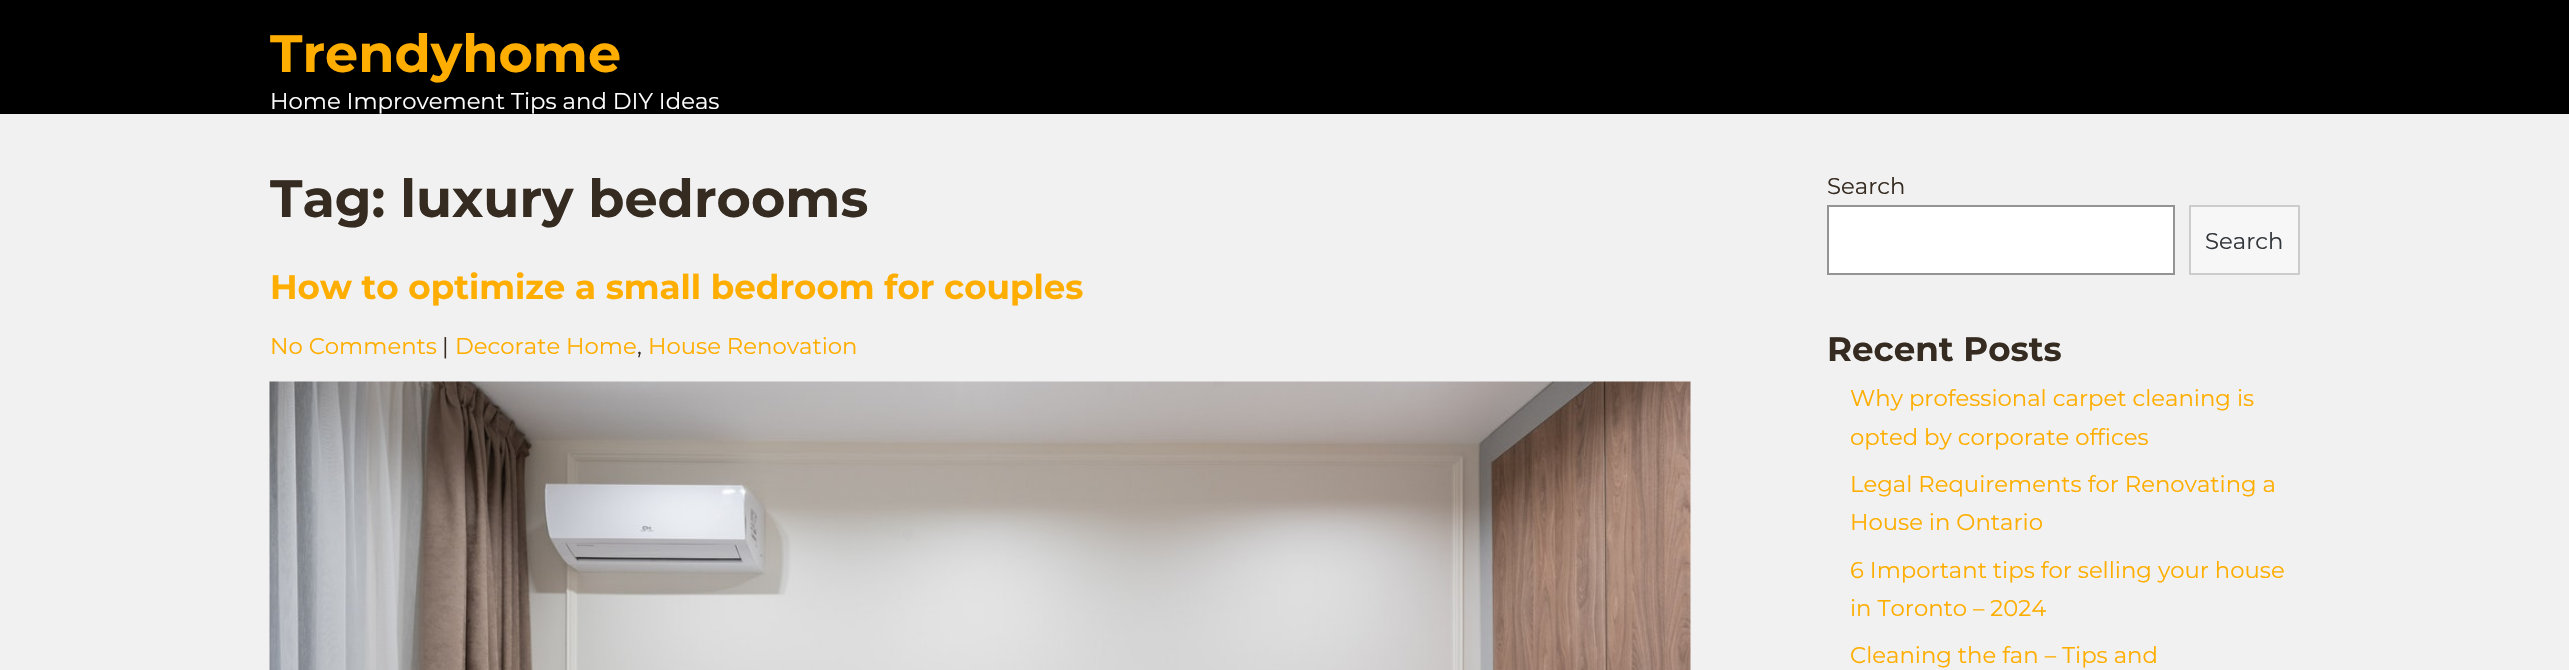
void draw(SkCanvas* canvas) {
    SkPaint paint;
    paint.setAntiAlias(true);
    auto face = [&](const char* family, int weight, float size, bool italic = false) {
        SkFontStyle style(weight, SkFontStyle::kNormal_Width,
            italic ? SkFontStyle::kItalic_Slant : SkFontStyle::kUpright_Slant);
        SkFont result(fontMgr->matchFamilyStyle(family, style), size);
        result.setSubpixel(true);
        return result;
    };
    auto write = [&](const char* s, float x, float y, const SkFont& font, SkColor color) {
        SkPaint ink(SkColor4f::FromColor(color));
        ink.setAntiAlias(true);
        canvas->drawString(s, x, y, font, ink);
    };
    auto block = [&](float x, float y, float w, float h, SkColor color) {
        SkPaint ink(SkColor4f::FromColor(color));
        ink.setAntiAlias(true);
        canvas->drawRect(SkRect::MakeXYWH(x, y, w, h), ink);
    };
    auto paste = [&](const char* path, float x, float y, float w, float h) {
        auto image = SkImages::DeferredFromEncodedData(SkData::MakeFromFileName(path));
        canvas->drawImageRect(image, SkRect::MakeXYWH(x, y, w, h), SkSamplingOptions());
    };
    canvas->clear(SkColorSetRGB(241, 241, 241));
    block(0, 0, 2569, 114, SK_ColorBLACK);
    auto kFont1 = face("Montserrat", 700, 52.5f);
    write("Trendyhome", 270, 72, kFont1, SkColorSetRGB(255, 174, 0));
    auto kFont2 = face("Montserrat", 400, 22.75f);
    write("Home Improvement Tips and DIY Ideas", 270, 109, kFont2, SK_ColorWHITE);
    write("Tag: luxury bedrooms", 270, 217, kFont1, SkColorSetRGB(54, 43, 33));
    auto kFont3 = face("Montserrat", 700, 34.1f);
    write("How to optimize a small bedroom for couples", 270, 299, kFont3, SkColorSetRGB(255, 174, 0));
    write("No Comments", 270, 354, kFont2, SkColorSetRGB(255, 174, 0));
    write("|", 442, 354, kFont2, SkColorSetRGB(54, 43, 33));
    write("Decorate Home", 455, 354, kFont2, SkColorSetRGB(255, 174, 0));
    write(",", 637, 354, kFont2, SkColorSetRGB(54, 43, 33));
    write("House Renovation", 648, 354, kFont2, SkColorSetRGB(255, 174, 0));
    paste("pic1.png", 269, 381, 1422, 289);
    write("Search", 1827, 194, kFont2, SkColorSetRGB(54, 43, 33));
    paint.setColor(SK_ColorWHITE);
    canvas->drawRect(SkRect::MakeXYWH(1828, 206, 346, 68), paint);
    paint.setStyle(SkPaint::kStroke_Style);
    paint.setStrokeWidth(2);
    paint.setColor(SkColorSetRGB(148, 148, 148));
    canvas->drawRect(SkRect::MakeXYWH(1828, 206, 346, 68), paint);
    paint.setStyle(SkPaint::kFill_Style);
    paint.setColor(SkColorSetRGB(247, 247, 247));
    canvas->drawRect(SkRect::MakeXYWH(2190, 206, 109, 68), paint);
    paint.setStyle(SkPaint::kStroke_Style);
    paint.setColor(SkColorSetRGB(204, 204, 204));
    canvas->drawRect(SkRect::MakeXYWH(2190, 206, 109, 68), paint);
    write("Search", 2205, 249, kFont2, SkColorSetRGB(50, 55, 60));
    write("Recent Posts", 1827, 361, kFont3, SkColorSetRGB(54, 43, 33));
    write("Why professional carpet cleaning is", 1850, 406, kFont2, SkColorSetRGB(255, 174, 0));
    write("opted by corporate offices", 1850, 445, kFont2, SkColorSetRGB(255, 174, 0));
    write("Legal Requirements for Renovating a", 1850, 492, kFont2, SkColorSetRGB(255, 174, 0));
    write("House in Ontario", 1850, 530, kFont2, SkColorSetRGB(255, 174, 0));
    write("6 Important tips for selling your house", 1850, 578, kFont2, SkColorSetRGB(255, 174, 0));
    write("in Toronto – 2024", 1850, 616, kFont2, SkColorSetRGB(255, 174, 0));
    write("Cleaning the fan – Tips and", 1850, 663, kFont2, SkColorSetRGB(255, 174, 0));
}
